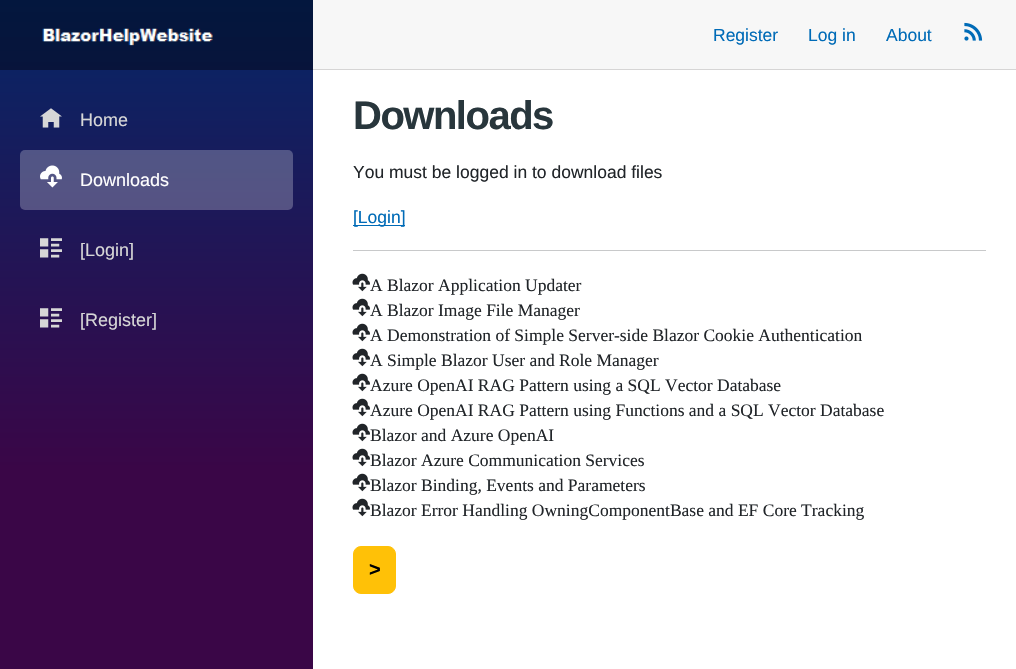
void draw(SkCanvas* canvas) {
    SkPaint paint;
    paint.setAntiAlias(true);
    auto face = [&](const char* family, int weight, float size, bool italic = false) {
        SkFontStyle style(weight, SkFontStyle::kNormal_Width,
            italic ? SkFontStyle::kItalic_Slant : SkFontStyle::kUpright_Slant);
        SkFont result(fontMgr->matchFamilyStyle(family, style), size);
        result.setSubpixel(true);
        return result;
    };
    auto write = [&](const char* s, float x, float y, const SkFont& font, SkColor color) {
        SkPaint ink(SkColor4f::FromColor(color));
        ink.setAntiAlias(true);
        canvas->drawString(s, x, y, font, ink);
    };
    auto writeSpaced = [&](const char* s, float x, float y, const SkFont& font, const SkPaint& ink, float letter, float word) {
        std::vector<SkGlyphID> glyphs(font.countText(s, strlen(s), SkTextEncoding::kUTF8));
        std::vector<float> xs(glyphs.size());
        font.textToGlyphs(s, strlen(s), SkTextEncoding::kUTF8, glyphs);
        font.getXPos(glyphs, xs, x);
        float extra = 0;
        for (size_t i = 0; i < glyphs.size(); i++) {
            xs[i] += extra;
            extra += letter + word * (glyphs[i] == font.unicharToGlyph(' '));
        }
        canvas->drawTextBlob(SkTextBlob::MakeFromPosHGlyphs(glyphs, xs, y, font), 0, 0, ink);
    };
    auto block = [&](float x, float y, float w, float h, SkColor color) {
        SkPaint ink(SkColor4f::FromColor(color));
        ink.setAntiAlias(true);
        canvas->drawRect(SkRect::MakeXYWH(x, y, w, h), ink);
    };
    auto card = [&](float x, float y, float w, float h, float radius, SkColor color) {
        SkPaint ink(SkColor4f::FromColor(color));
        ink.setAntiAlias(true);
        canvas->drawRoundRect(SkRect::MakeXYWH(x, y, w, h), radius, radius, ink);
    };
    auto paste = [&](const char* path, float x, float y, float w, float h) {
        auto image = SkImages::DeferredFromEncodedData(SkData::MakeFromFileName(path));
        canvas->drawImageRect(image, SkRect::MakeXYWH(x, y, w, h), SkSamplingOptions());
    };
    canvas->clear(SK_ColorWHITE);
    {
        const SkColor colors[] = {SkColorSetRGB(5, 39, 103), SkColorSetRGB(58, 6, 71)};
        const float stops[] = {0, 0.7f};
        const SkPoint ends[] = {{156, 0}, {156, 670}};
        paint.setShader(SkGradientShader::MakeLinear(ends, colors, stops, 2, SkTileMode::kClamp));
        paint.setAlpha(255);
    }
    canvas->drawRect(SkRect::MakeXYWH(0, 70, 313, 599), paint);
    {
        const SkColor colors[] = {SkColorSetRGB(3, 23, 62), SkColorSetRGB(35, 4, 43)};
        const float stops[] = {0, 0.7f};
        const SkPoint ends[] = {{156, 0}, {156, 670}};
        paint.setShader(SkGradientShader::MakeLinear(ends, colors, stops, 2, SkTileMode::kClamp));
        paint.setAlpha(255);
    }
    canvas->drawRect(SkRect::MakeXYWH(0, 0, 313, 70), paint);
    paste("pic1.png", 42, 28, 171, 18);
    paste("pic2.png", 40, 108, 22, 20);
    auto kFont1 = face("Liberation Sans", 400, 18);
    write("Home", 80, 126, kFont1, SkColorSetRGB(215, 215, 215));
    card(20, 150, 273, 60, 5, SkColorSetARGB(64, 255, 255, 255));
    paste("pic3.png", 40, 165, 22, 23);
    write("Downloads", 80, 186, kFont1, SK_ColorWHITE);
    paste("pic4.png", 40, 238, 22, 20);
    write("[Login]", 80, 256, kFont1, SkColorSetRGB(215, 215, 215));
    paste("pic5.png", 40, 308, 22, 20);
    write("[Register]", 80, 326, kFont1, SkColorSetRGB(215, 215, 215));
    block(313, 0, 703, 69, SkColorSetRGB(247, 247, 247));
    block(313, 69, 703, 1, SkColorSetRGB(214, 213, 213));
    auto kFont2 = face("Liberation Sans", 400, 17.5f);
    write("Register", 713, 41, kFont2, SkColorSetRGB(0, 107, 183));
    write("Log in", 808, 41, kFont2, SkColorSetRGB(0, 107, 183));
    write("About", 886, 41, kFont2, SkColorSetRGB(0, 107, 183));
    paste("pic6.png", 964, 22, 19, 19);
    auto kFont3 = face("Liberation Sans", 700, 40);
    paint.setShader(nullptr);
    paint.setColor(SkColorSetRGB(40, 54, 60));
    writeSpaced("Downloads", 353, 129, kFont3, paint, -1.5f, 0);
    write("You must be logged in to download files", 353, 178, kFont2, SkColorSetRGB(33, 37, 41));
    block(353, 225, 52, 1, SkColorSetRGB(0, 107, 183));
    write("[Login]", 353, 223, kFont2, SkColorSetRGB(0, 107, 183));
    block(353, 250, 633, 1, SkColorSetRGB(200, 201, 202));
    paste("pic7.png", 352, 273, 18, 19);
    auto kFont4 = face("Liberation Serif", 400, 17.5f);
    write("A Blazor Application Updater", 370, 291, kFont4, SkColorSetRGB(33, 37, 41));
    paste("pic7.png", 352, 298, 18, 19);
    write("A Blazor Image File Manager", 370, 316, kFont4, SkColorSetRGB(33, 37, 41));
    paste("pic7.png", 352, 323, 18, 19);
    write("A Demonstration of Simple Server-side Blazor Cookie Authentication", 370, 341, kFont4, SkColorSetRGB(33, 37, 41));
    paste("pic7.png", 352, 348, 18, 19);
    write("A Simple Blazor User and Role Manager", 370, 366, kFont4, SkColorSetRGB(33, 37, 41));
    paste("pic7.png", 352, 373, 18, 19);
    write("Azure OpenAI RAG Pattern using a SQL Vector Database", 370, 391, kFont4, SkColorSetRGB(33, 37, 41));
    paste("pic7.png", 352, 398, 18, 19);
    write("Azure OpenAI RAG Pattern using Functions and a SQL Vector Database", 370, 416, kFont4, SkColorSetRGB(33, 37, 41));
    paste("pic7.png", 352, 423, 18, 19);
    write("Blazor and Azure OpenAI", 370, 441, kFont4, SkColorSetRGB(33, 37, 41));
    paste("pic7.png", 352, 448, 18, 19);
    write("Blazor Azure Communication Services", 370, 466, kFont4, SkColorSetRGB(33, 37, 41));
    paste("pic7.png", 352, 473, 18, 19);
    write("Blazor Binding, Events and Parameters", 370, 491, kFont4, SkColorSetRGB(33, 37, 41));
    paste("pic7.png", 352, 498, 18, 19);
    write("Blazor Error Handling OwningComponentBase and EF Core Tracking", 370, 516, kFont4, SkColorSetRGB(33, 37, 41));
    paint.setColor(SkColorSetRGB(255, 193, 7));
    canvas->drawRoundRect(SkRect::MakeXYWH(353.5f, 546.5f, 42, 47), 7.5f, 7.5f, paint);
    paint.setStyle(SkPaint::kStroke_Style);
    paint.setStrokeWidth(1);
    canvas->drawRoundRect(SkRect::MakeXYWH(353.5f, 546.5f, 42, 47), 7.5f, 7.5f, paint);
    auto kFont5 = face("Liberation Sans", 700, 20);
    write(">", 369, 576, kFont5, SK_ColorBLACK);
}
